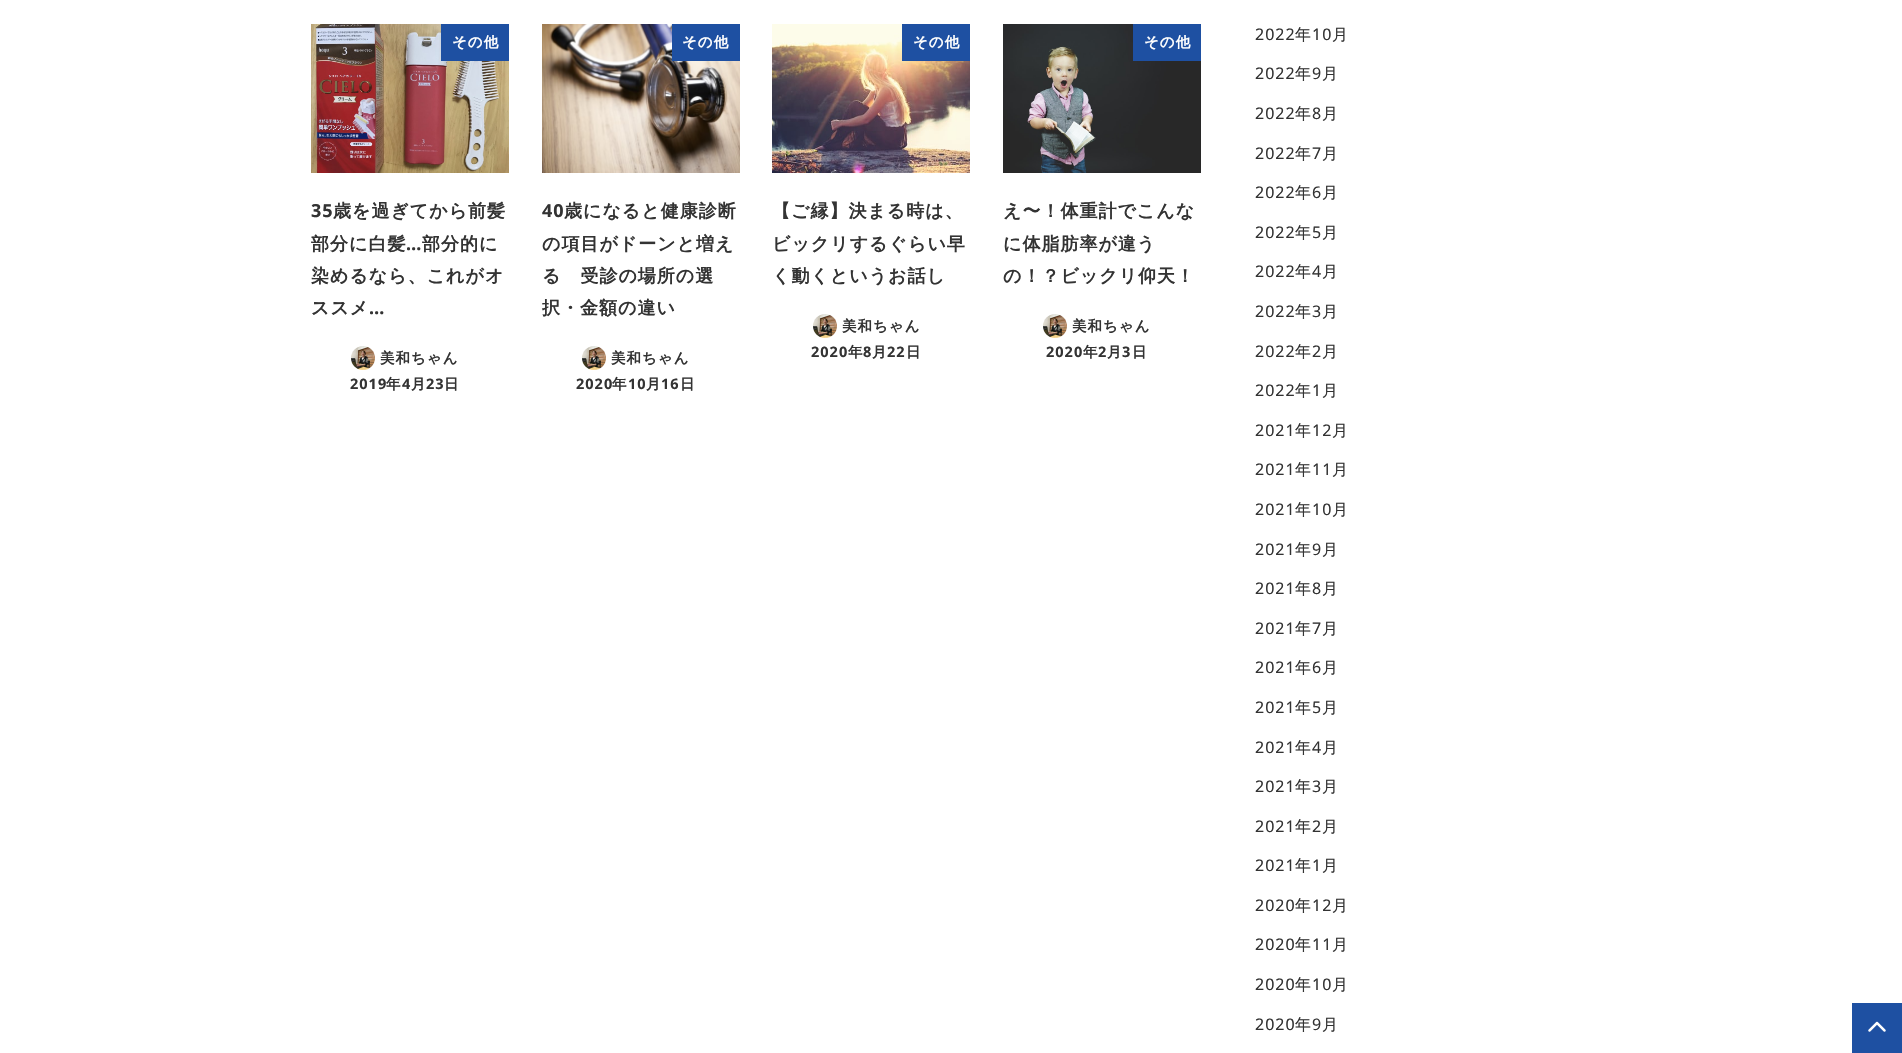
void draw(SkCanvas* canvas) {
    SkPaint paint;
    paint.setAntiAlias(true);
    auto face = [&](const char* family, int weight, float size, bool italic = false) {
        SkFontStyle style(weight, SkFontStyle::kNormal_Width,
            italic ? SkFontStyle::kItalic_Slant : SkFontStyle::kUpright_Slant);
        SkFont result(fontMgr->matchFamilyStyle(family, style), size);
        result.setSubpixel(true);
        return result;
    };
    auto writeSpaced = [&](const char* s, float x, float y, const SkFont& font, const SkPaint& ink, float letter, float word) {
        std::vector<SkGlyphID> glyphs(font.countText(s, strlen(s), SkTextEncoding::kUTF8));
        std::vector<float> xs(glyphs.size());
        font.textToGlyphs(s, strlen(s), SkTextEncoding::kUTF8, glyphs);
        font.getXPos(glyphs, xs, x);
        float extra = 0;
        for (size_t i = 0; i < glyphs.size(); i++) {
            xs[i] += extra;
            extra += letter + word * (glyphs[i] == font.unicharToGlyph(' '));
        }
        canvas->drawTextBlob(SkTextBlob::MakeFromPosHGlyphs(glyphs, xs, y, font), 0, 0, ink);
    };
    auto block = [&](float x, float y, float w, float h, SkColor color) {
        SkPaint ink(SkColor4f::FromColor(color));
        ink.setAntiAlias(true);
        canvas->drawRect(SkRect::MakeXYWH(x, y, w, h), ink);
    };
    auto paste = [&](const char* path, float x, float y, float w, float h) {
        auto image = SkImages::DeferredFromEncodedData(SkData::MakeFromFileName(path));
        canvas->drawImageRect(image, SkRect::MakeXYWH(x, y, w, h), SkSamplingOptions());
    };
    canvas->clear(SK_ColorWHITE);
    paste("pic1.png", 311, 24, 198, 149);
    block(441, 24, 68, 37, SkColorSetRGB(30, 80, 162));
    auto kFont1 = face("WenQuanYi Zen Hei", 700, 14.5f);
    paint.setColor(SK_ColorWHITE);
    writeSpaced("その他", 452, 47, kFont1, paint, 1, 0);
    auto kFont2 = face("Noto Sans", 700, 18);
    paint.setColor(SkColorSetRGB(51, 51, 51));
    writeSpaced("35", 311, 217, kFont2, paint, 1, 0);
    auto kFont3 = face("WenQuanYi Zen Hei", 700, 18);
    writeSpaced("歳を過ぎてから前髪", 333, 217, kFont3, paint, 1, 0);
    writeSpaced("部分に白髪", 311, 250, kFont3, paint, 1, 0);
    writeSpaced("…", 406, 250, kFont2, paint, 1, 0);
    writeSpaced("部分的に", 422, 250, kFont3, paint, 1, 0);
    writeSpaced("染めるなら、これがオ", 311, 282, kFont3, paint, 1, 0);
    writeSpaced("ススメ", 311, 314, kFont3, paint, 1, 0);
    writeSpaced("…", 369, 314, kFont2, paint, 1, 0);
    paste("pic2.png", 351, 346, 24, 24);
    writeSpaced("美和ちゃん", 380, 363, kFont1, paint, 1, 0);
    auto kFont4 = face("Noto Sans", 700, 14.5f);
    writeSpaced("2019", 350, 389, kFont4, paint, 1, 0);
    writeSpaced("年", 386, 389, kFont1, paint, 1, 0);
    writeSpaced("4", 402, 389, kFont4, paint, 1, 0);
    writeSpaced("月", 411, 389, kFont1, paint, 1, 0);
    writeSpaced("23", 426, 389, kFont4, paint, 1, 0);
    writeSpaced("日", 444, 389, kFont1, paint, 1, 0);
    paste("pic3.png", 542, 24, 198, 149);
    block(672, 24, 68, 37, SkColorSetRGB(30, 80, 162));
    paint.setColor(SK_ColorWHITE);
    writeSpaced("その他", 682, 47, kFont1, paint, 1, 0);
    paint.setColor(SkColorSetRGB(51, 51, 51));
    writeSpaced("40", 542, 217, kFont2, paint, 1, 0);
    writeSpaced("歳になると健康診断", 564, 217, kFont3, paint, 1, 0);
    writeSpaced("の項目がドーンと増え", 542, 250, kFont3, paint, 1, 0);
    writeSpaced("る　受診の場所の選", 542, 282, kFont3, paint, 1, 0);
    writeSpaced("択・金額の違い", 542, 314, kFont3, paint, 1, 0);
    paste("pic2.png", 582, 346, 24, 24);
    writeSpaced("美和ちゃん", 611, 363, kFont1, paint, 1, 0);
    writeSpaced("2020", 576, 389, kFont4, paint, 1, 0);
    writeSpaced("年", 612, 389, kFont1, paint, 1, 0);
    writeSpaced("10", 628, 389, kFont4, paint, 1, 0);
    writeSpaced("月", 646, 389, kFont1, paint, 1, 0);
    writeSpaced("16", 661, 389, kFont4, paint, 1, 0);
    writeSpaced("日", 680, 389, kFont1, paint, 1, 0);
    paste("pic4.png", 772, 24, 198, 149);
    block(902, 24, 68, 37, SkColorSetRGB(30, 80, 162));
    paint.setColor(SK_ColorWHITE);
    writeSpaced("その他", 913, 47, kFont1, paint, 1, 0);
    paint.setColor(SkColorSetRGB(51, 51, 51));
    writeSpaced("【ご縁】決まる時は、", 772, 217, kFont3, paint, 1, 0);
    writeSpaced("ビックリするぐらい早", 772, 250, kFont3, paint, 1, 0);
    writeSpaced("く動くというお話し", 772, 282, kFont3, paint, 1, 0);
    paste("pic2.png", 813, 314, 24, 24);
    writeSpaced("美和ちゃん", 842, 331, kFont1, paint, 1, 0);
    writeSpaced("2020", 811, 357, kFont4, paint, 1, 0);
    writeSpaced("年", 848, 357, kFont1, paint, 1, 0);
    writeSpaced("8", 863, 357, kFont4, paint, 1, 0);
    writeSpaced("月", 872, 357, kFont1, paint, 1, 0);
    writeSpaced("22", 887, 357, kFont4, paint, 1, 0);
    writeSpaced("日", 906, 357, kFont1, paint, 1, 0);
    paste("pic5.png", 1003, 24, 198, 149);
    block(1133, 24, 68, 37, SkColorSetRGB(30, 80, 162));
    paint.setColor(SK_ColorWHITE);
    writeSpaced("その他", 1144, 47, kFont1, paint, 1, 0);
    paint.setColor(SkColorSetRGB(51, 51, 51));
    writeSpaced("え〜！体重計でこんな", 1003, 217, kFont3, paint, 1, 0);
    writeSpaced("に体脂肪率が違う", 1003, 250, kFont3, paint, 1, 0);
    writeSpaced("の！？ビックリ仰天！", 1003, 282, kFont3, paint, 1, 0);
    paste("pic2.png", 1043, 314, 24, 24);
    writeSpaced("美和ちゃん", 1072, 331, kFont1, paint, 1, 0);
    writeSpaced("2020", 1046, 357, kFont4, paint, 1, 0);
    writeSpaced("年", 1083, 357, kFont1, paint, 1, 0);
    writeSpaced("2", 1098, 357, kFont4, paint, 1, 0);
    writeSpaced("月", 1107, 357, kFont1, paint, 1, 0);
    writeSpaced("3", 1122, 357, kFont4, paint, 1, 0);
    writeSpaced("日", 1132, 357, kFont1, paint, 1, 0);
    auto kFont5 = face("Noto Sans", 400, 16);
    writeSpaced("2022", 1255, 40, kFont5, paint, 1, 0);
    auto kFont6 = face("WenQuanYi Zen Hei", 500, 16);
    writeSpaced("年", 1295, 40, kFont6, paint, 1, 0);
    writeSpaced("10", 1312, 40, kFont5, paint, 1, 0);
    writeSpaced("月", 1332, 40, kFont6, paint, 1, 0);
    writeSpaced("2022", 1255, 79, kFont5, paint, 1, 0);
    writeSpaced("年", 1295, 79, kFont6, paint, 1, 0);
    writeSpaced("9", 1312, 79, kFont5, paint, 1, 0);
    writeSpaced("月", 1322, 79, kFont6, paint, 1, 0);
    writeSpaced("2022", 1255, 119, kFont5, paint, 1, 0);
    writeSpaced("年", 1295, 119, kFont6, paint, 1, 0);
    writeSpaced("8", 1312, 119, kFont5, paint, 1, 0);
    writeSpaced("月", 1322, 119, kFont6, paint, 1, 0);
    writeSpaced("2022", 1255, 159, kFont5, paint, 1, 0);
    writeSpaced("年", 1295, 159, kFont6, paint, 1, 0);
    writeSpaced("7", 1312, 159, kFont5, paint, 1, 0);
    writeSpaced("月", 1322, 159, kFont6, paint, 1, 0);
    writeSpaced("2022", 1255, 198, kFont5, paint, 1, 0);
    writeSpaced("年", 1295, 198, kFont6, paint, 1, 0);
    writeSpaced("6", 1312, 198, kFont5, paint, 1, 0);
    writeSpaced("月", 1322, 198, kFont6, paint, 1, 0);
    writeSpaced("2022", 1255, 238, kFont5, paint, 1, 0);
    writeSpaced("年", 1295, 238, kFont6, paint, 1, 0);
    writeSpaced("5", 1312, 238, kFont5, paint, 1, 0);
    writeSpaced("月", 1322, 238, kFont6, paint, 1, 0);
    writeSpaced("2022", 1255, 277, kFont5, paint, 1, 0);
    writeSpaced("年", 1295, 277, kFont6, paint, 1, 0);
    writeSpaced("4", 1312, 277, kFont5, paint, 1, 0);
    writeSpaced("月", 1322, 277, kFont6, paint, 1, 0);
    writeSpaced("2022", 1255, 317, kFont5, paint, 1, 0);
    writeSpaced("年", 1295, 317, kFont6, paint, 1, 0);
    writeSpaced("3", 1312, 317, kFont5, paint, 1, 0);
    writeSpaced("月", 1322, 317, kFont6, paint, 1, 0);
    writeSpaced("2022", 1255, 357, kFont5, paint, 1, 0);
    writeSpaced("年", 1295, 357, kFont6, paint, 1, 0);
    writeSpaced("2", 1312, 357, kFont5, paint, 1, 0);
    writeSpaced("月", 1322, 357, kFont6, paint, 1, 0);
    writeSpaced("2022", 1255, 396, kFont5, paint, 1, 0);
    writeSpaced("年", 1295, 396, kFont6, paint, 1, 0);
    writeSpaced("1", 1312, 396, kFont5, paint, 1, 0);
    writeSpaced("月", 1322, 396, kFont6, paint, 1, 0);
    writeSpaced("2021", 1255, 436, kFont5, paint, 1, 0);
    writeSpaced("年", 1295, 436, kFont6, paint, 1, 0);
    writeSpaced("12", 1312, 436, kFont5, paint, 1, 0);
    writeSpaced("月", 1332, 436, kFont6, paint, 1, 0);
    writeSpaced("2021", 1255, 475, kFont5, paint, 1, 0);
    writeSpaced("年", 1295, 475, kFont6, paint, 1, 0);
    writeSpaced("11", 1312, 475, kFont5, paint, 1, 0);
    writeSpaced("月", 1332, 475, kFont6, paint, 1, 0);
    writeSpaced("2021", 1255, 515, kFont5, paint, 1, 0);
    writeSpaced("年", 1295, 515, kFont6, paint, 1, 0);
    writeSpaced("10", 1312, 515, kFont5, paint, 1, 0);
    writeSpaced("月", 1332, 515, kFont6, paint, 1, 0);
    writeSpaced("2021", 1255, 555, kFont5, paint, 1, 0);
    writeSpaced("年", 1295, 555, kFont6, paint, 1, 0);
    writeSpaced("9", 1312, 555, kFont5, paint, 1, 0);
    writeSpaced("月", 1322, 555, kFont6, paint, 1, 0);
    writeSpaced("2021", 1255, 594, kFont5, paint, 1, 0);
    writeSpaced("年", 1295, 594, kFont6, paint, 1, 0);
    writeSpaced("8", 1312, 594, kFont5, paint, 1, 0);
    writeSpaced("月", 1322, 594, kFont6, paint, 1, 0);
    writeSpaced("2021", 1255, 634, kFont5, paint, 1, 0);
    writeSpaced("年", 1295, 634, kFont6, paint, 1, 0);
    writeSpaced("7", 1312, 634, kFont5, paint, 1, 0);
    writeSpaced("月", 1322, 634, kFont6, paint, 1, 0);
    writeSpaced("2021", 1255, 673, kFont5, paint, 1, 0);
    writeSpaced("年", 1295, 673, kFont6, paint, 1, 0);
    writeSpaced("6", 1312, 673, kFont5, paint, 1, 0);
    writeSpaced("月", 1322, 673, kFont6, paint, 1, 0);
    writeSpaced("2021", 1255, 713, kFont5, paint, 1, 0);
    writeSpaced("年", 1295, 713, kFont6, paint, 1, 0);
    writeSpaced("5", 1312, 713, kFont5, paint, 1, 0);
    writeSpaced("月", 1322, 713, kFont6, paint, 1, 0);
    writeSpaced("2021", 1255, 753, kFont5, paint, 1, 0);
    writeSpaced("年", 1295, 753, kFont6, paint, 1, 0);
    writeSpaced("4", 1312, 753, kFont5, paint, 1, 0);
    writeSpaced("月", 1322, 753, kFont6, paint, 1, 0);
    writeSpaced("2021", 1255, 792, kFont5, paint, 1, 0);
    writeSpaced("年", 1295, 792, kFont6, paint, 1, 0);
    writeSpaced("3", 1312, 792, kFont5, paint, 1, 0);
    writeSpaced("月", 1322, 792, kFont6, paint, 1, 0);
    writeSpaced("2021", 1255, 832, kFont5, paint, 1, 0);
    writeSpaced("年", 1295, 832, kFont6, paint, 1, 0);
    writeSpaced("2", 1312, 832, kFont5, paint, 1, 0);
    writeSpaced("月", 1322, 832, kFont6, paint, 1, 0);
    writeSpaced("2021", 1255, 871, kFont5, paint, 1, 0);
    writeSpaced("年", 1295, 871, kFont6, paint, 1, 0);
    writeSpaced("1", 1312, 871, kFont5, paint, 1, 0);
    writeSpaced("月", 1322, 871, kFont6, paint, 1, 0);
    writeSpaced("2020", 1255, 911, kFont5, paint, 1, 0);
    writeSpaced("年", 1295, 911, kFont6, paint, 1, 0);
    writeSpaced("12", 1312, 911, kFont5, paint, 1, 0);
    writeSpaced("月", 1332, 911, kFont6, paint, 1, 0);
    writeSpaced("2020", 1255, 950, kFont5, paint, 1, 0);
    writeSpaced("年", 1295, 950, kFont6, paint, 1, 0);
    writeSpaced("11", 1312, 950, kFont5, paint, 1, 0);
    writeSpaced("月", 1332, 950, kFont6, paint, 1, 0);
    writeSpaced("2020", 1255, 990, kFont5, paint, 1, 0);
    writeSpaced("年", 1295, 990, kFont6, paint, 1, 0);
    writeSpaced("10", 1312, 990, kFont5, paint, 1, 0);
    writeSpaced("月", 1332, 990, kFont6, paint, 1, 0);
    writeSpaced("2020", 1255, 1030, kFont5, paint, 1, 0);
    writeSpaced("年", 1295, 1030, kFont6, paint, 1, 0);
    writeSpaced("9", 1312, 1030, kFont5, paint, 1, 0);
    writeSpaced("月", 1322, 1030, kFont6, paint, 1, 0);
    block(1852, 1003, 50, 50, SkColorSetRGB(30, 80, 162));
    paste("pic6.png", 1868, 1021, 18, 11);
}
